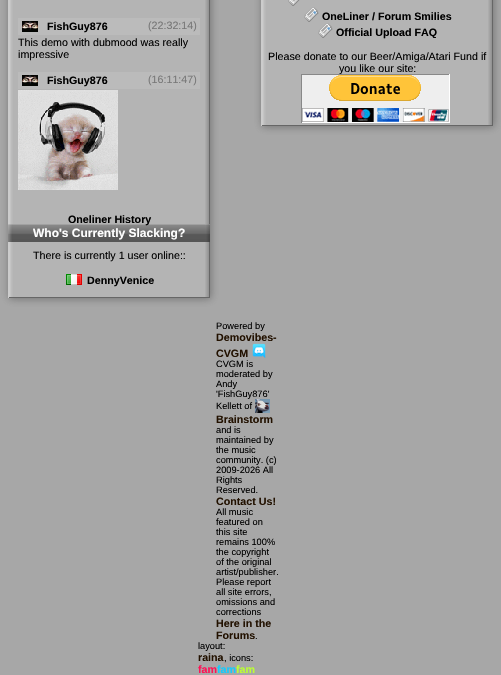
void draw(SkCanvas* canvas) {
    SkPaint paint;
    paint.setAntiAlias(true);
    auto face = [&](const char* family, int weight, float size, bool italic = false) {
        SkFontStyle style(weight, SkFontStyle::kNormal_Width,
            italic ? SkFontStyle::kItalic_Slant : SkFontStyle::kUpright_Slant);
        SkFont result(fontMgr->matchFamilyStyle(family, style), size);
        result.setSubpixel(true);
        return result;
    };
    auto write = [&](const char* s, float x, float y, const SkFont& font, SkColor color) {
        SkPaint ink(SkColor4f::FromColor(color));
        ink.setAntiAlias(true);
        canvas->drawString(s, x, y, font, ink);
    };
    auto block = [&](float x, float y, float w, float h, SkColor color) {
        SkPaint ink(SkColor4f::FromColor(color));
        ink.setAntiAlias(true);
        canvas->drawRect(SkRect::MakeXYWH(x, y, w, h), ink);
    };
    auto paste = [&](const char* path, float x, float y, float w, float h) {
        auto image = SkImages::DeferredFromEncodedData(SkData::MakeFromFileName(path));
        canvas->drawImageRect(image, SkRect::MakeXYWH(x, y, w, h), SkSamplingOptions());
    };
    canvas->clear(SkColorSetRGB(167, 167, 167));
    canvas->save();
    canvas->clipPath(SkPathBuilder(SkPathFillType::kEvenOdd).moveTo(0, 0).lineTo(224, 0).lineTo(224, 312).lineTo(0, 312).close().moveTo(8, -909).lineTo(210, -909).lineTo(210, 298).lineTo(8, 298).close().detach(), true);
    paint.setColor(SkColorSetARGB(128, 64, 64, 64));
    paint.setMaskFilter(SkMaskFilter::MakeBlur(kNormal_SkBlurStyle, 4));
    canvas->drawRect(SkRect::MakeXYWH(9, -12, 202, 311), paint);
    paint.setMaskFilter(nullptr);
    canvas->restore();
    paste("pic1.png", 9, 0, 200, 297);
    block(209, 0, 1, 298, SkColorSetRGB(102, 102, 102));
    block(8, 297, 202, 1, SkColorSetRGB(102, 102, 102));
    block(8, 0, 1, 298, SkColorSetRGB(204, 204, 204));
    block(18, 18, 182, 17, SkColorSetRGB(187, 187, 187));
    paste("pic2.png", 22, 21, 16, 11);
    auto kFont1 = face("Liberation Sans", 700, 10.7f);
    write("FishGuy876", 47, 30, kFont1, SK_ColorBLACK);
    auto kFont2 = face("Liberation Sans", 400, 10.7f);
    write("(22:32:14)", 148, 29, kFont2, SkColorSetRGB(119, 119, 119));
    write("This demo with dubmood was really", 18, 46, kFont2, SK_ColorBLACK);
    write("impressive", 18, 58, kFont2, SK_ColorBLACK);
    block(18, 72, 182, 17, SkColorSetRGB(187, 187, 187));
    paste("pic2.png", 22, 75, 16, 11);
    write("FishGuy876", 47, 84, kFont1, SK_ColorBLACK);
    write("(16:11:47)", 148, 83, kFont2, SkColorSetRGB(119, 119, 119));
    paste("pic3.png", 18, 90, 100, 100);
    block(8, 225, 202, 17, SkColorSetRGB(80, 80, 80));
    paste("pic4.png", 8, 224, 202, 18);
    write("Oneliner History", 68, 223, kFont1, SK_ColorBLACK);
    auto kFont3 = face("Liberation Sans", 700, 12);
    write("Who's Currently Slacking?", 33, 237, kFont3, SK_ColorWHITE);
    write("There is currently 1 user online::", 33, 259, kFont2, SK_ColorBLACK);
    paste("pic5.png", 66, 274, 16, 11);
    write("DennyVenice", 87, 284, kFont1, SK_ColorBLACK);
    canvas->save();
    canvas->clipPath(SkPathBuilder(SkPathFillType::kEvenOdd).moveTo(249, 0).lineTo(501, 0).lineTo(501, 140).lineTo(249, 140).close().moveTo(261, -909).lineTo(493, -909).lineTo(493, 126).lineTo(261, 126).close().detach(), true);
    paint.setMaskFilter(SkMaskFilter::MakeBlur(kNormal_SkBlurStyle, 4));
    canvas->drawRect(SkRect::MakeXYWH(262, -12, 232, 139), paint);
    paint.setMaskFilter(nullptr);
    canvas->restore();
    paste("pic6.png", 262, 0, 230, 125);
    block(492, 0, 1, 126, SkColorSetRGB(102, 102, 102));
    block(261, 125, 232, 1, SkColorSetRGB(102, 102, 102));
    block(261, 0, 1, 126, SkColorSetRGB(204, 204, 204));
    paste("pic7.png", 288, 0, 12, 6);
    paste("pic8.png", 304, 7, 15, 15);
    write("OneLiner / Forum Smilies", 322, 20, kFont1, SK_ColorBLACK);
    paste("pic8.png", 318, 23, 15, 15);
    write("Official Upload FAQ", 336, 36, kFont1, SK_ColorBLACK);
    write("Please donate to our Beer/Amiga/Atari Fund if", 268, 60, kFont2, SK_ColorBLACK);
    write("you like our site:", 339, 72, kFont2, SK_ColorBLACK);
    block(302, 75, 147, 47, SkColorSetRGB(238, 238, 238));
    block(301, 74, 149, 1, SkColorSetRGB(136, 136, 136));
    block(449, 74, 1, 49, SK_ColorWHITE);
    block(301, 122, 149, 1, SK_ColorWHITE);
    block(301, 74, 1, 49, SkColorSetRGB(136, 136, 136));
    paste("pic9.png", 302, 75, 147, 47);
    auto kFont4 = face("Liberation Sans", 400, 9.25f);
    write("Powered by", 216, 329, kFont4, SK_ColorBLACK);
    write("Demovibes-", 216, 341, kFont1, SkColorSetRGB(34, 17, 0));
    write("CVGM", 216, 357, kFont1, SkColorSetRGB(34, 17, 0));
    paste("pic10.png", 252, 343, 14, 15);
    write("CVGM is", 216, 367, kFont4, SK_ColorBLACK);
    write("moderated by", 216, 377, kFont4, SK_ColorBLACK);
    write("Andy", 216, 387, kFont4, SK_ColorBLACK);
    write("'FishGuy876'", 216, 397, kFont4, SK_ColorBLACK);
    write("Kellett of", 216, 409, kFont4, SK_ColorBLACK);
    paste("pic11.png", 255, 399, 15, 14);
    write("Brainstorm", 216, 423, kFont1, SkColorSetRGB(34, 17, 0));
    write("and is", 216, 433, kFont4, SK_ColorBLACK);
    write("maintained by", 216, 443, kFont4, SK_ColorBLACK);
    write("the music", 216, 453, kFont4, SK_ColorBLACK);
    write("community. (c)", 216, 463, kFont4, SK_ColorBLACK);
    write("2009-2026 All", 216, 473, kFont4, SK_ColorBLACK);
    write("Rights", 216, 483, kFont4, SK_ColorBLACK);
    write("Reserved.", 216, 493, kFont4, SK_ColorBLACK);
    write("Contact Us!", 216, 505, kFont1, SkColorSetRGB(34, 17, 0));
    write("All music", 216, 515, kFont4, SK_ColorBLACK);
    write("featured on", 216, 525, kFont4, SK_ColorBLACK);
    write("this site", 216, 535, kFont4, SK_ColorBLACK);
    write("remains 100%", 216, 545, kFont4, SK_ColorBLACK);
    write("the copyright", 216, 555, kFont4, SK_ColorBLACK);
    write("of the original", 216, 565, kFont4, SK_ColorBLACK);
    write("artist/publisher.", 216, 575, kFont4, SK_ColorBLACK);
    write("Please report", 216, 585, kFont4, SK_ColorBLACK);
    write("all site errors,", 216, 595, kFont4, SK_ColorBLACK);
    write("omissions and", 216, 605, kFont4, SK_ColorBLACK);
    write("corrections", 216, 615, kFont4, SK_ColorBLACK);
    write("Here in the", 216, 627, kFont1, SkColorSetRGB(34, 17, 0));
    write("Forums", 216, 639, kFont1, SkColorSetRGB(34, 17, 0));
    write(".", 255, 639, kFont4, SK_ColorBLACK);
    write("layout:", 198, 649, kFont4, SK_ColorBLACK);
    write("raina", 198, 661, kFont1, SkColorSetRGB(34, 17, 0));
    write(", icons:", 224, 661, kFont4, SK_ColorBLACK);
    write("fam", 198, 673, kFont1, SkColorSetRGB(255, 17, 85));
    write("fam", 217, 673, kFont1, SkColorSetRGB(17, 204, 255));
    write("fam", 236, 673, kFont1, SkColorSetRGB(187, 255, 51));
}
